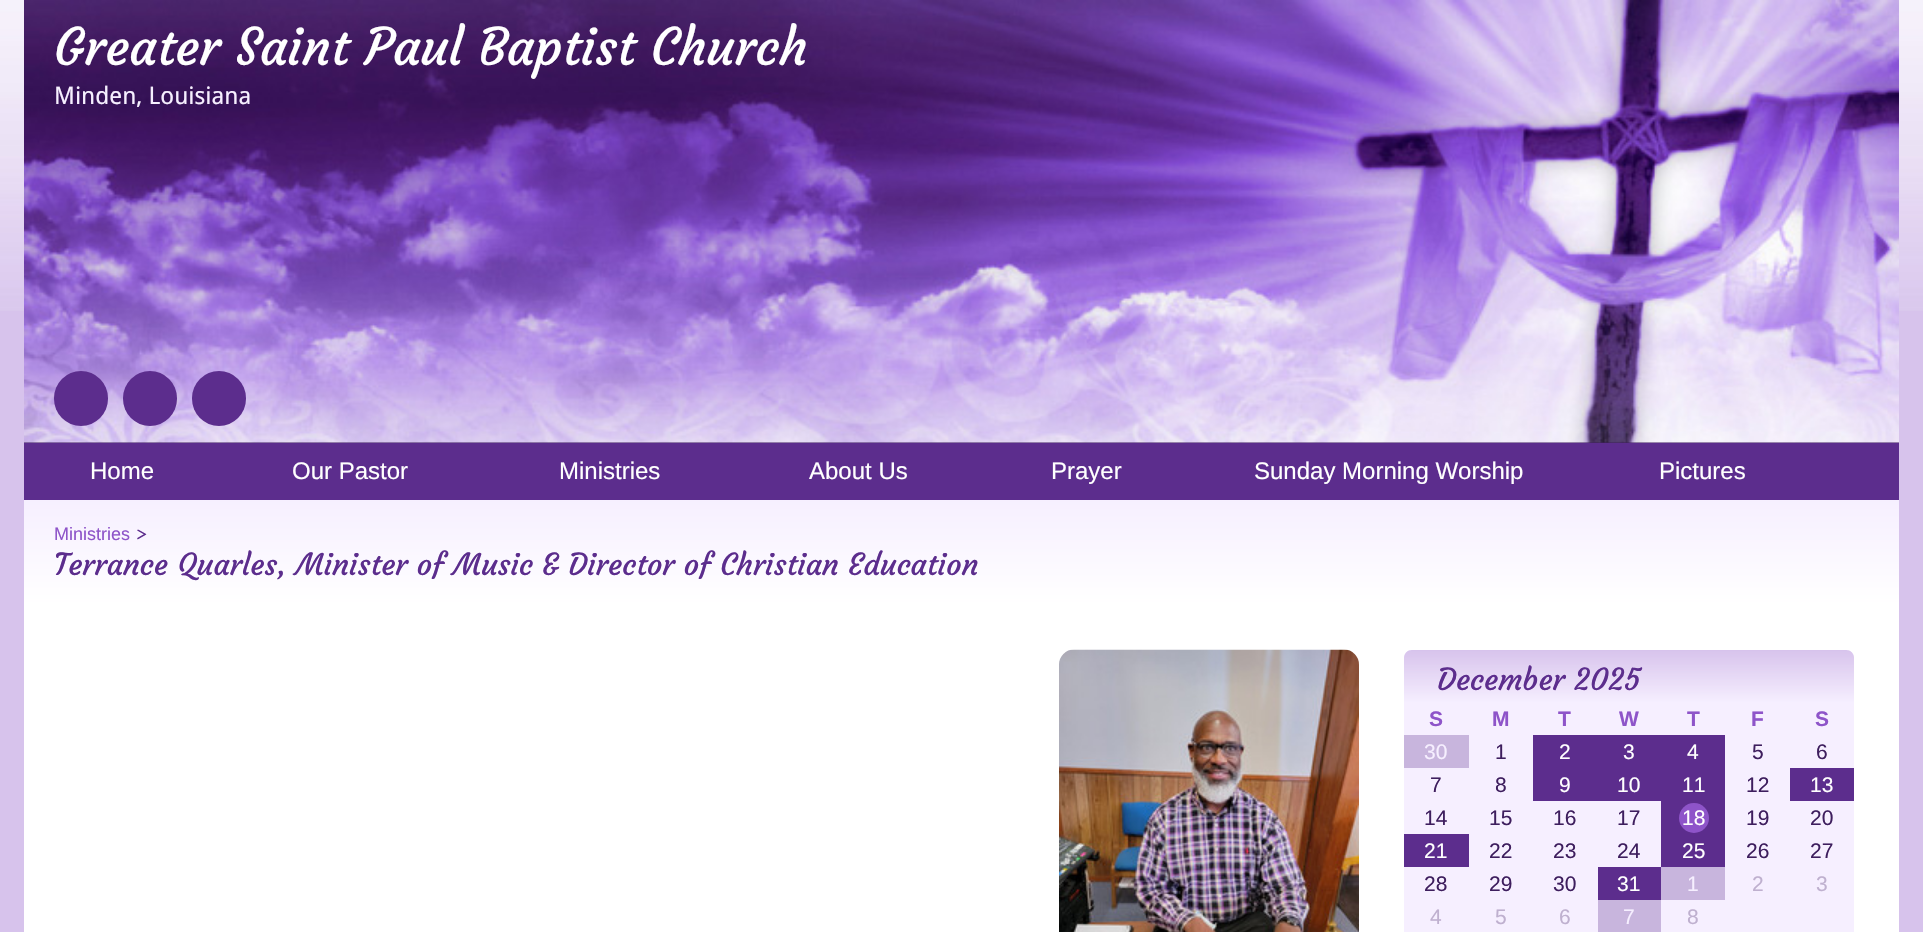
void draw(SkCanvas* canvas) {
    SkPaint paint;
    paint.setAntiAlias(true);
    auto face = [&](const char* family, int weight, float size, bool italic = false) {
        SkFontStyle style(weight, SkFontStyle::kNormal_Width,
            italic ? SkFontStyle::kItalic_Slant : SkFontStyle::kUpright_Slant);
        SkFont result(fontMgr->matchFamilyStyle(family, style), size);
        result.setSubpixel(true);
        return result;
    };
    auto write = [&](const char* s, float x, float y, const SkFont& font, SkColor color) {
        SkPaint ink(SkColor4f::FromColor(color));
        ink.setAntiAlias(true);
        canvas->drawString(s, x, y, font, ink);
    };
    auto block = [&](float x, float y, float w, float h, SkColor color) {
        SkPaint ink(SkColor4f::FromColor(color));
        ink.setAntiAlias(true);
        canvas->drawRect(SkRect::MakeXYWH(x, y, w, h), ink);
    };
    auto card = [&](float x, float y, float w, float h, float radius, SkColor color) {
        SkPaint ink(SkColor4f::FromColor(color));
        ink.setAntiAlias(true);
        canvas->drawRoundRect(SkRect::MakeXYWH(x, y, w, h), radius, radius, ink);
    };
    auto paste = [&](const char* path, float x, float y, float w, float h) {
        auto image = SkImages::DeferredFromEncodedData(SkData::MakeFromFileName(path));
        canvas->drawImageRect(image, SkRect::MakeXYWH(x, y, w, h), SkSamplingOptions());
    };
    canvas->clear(SkColorSetRGB(215, 195, 236));
    paste("pic1.png", 0, 0, 1923, 311);
    block(24, 442, 1875, 1, SkColorSetRGB(62, 30, 94));
    paste("pic2.png", 24, 0, 1875, 443);
    auto kFont1 = face("Courgette", 400, 51);
    write("Greater Saint Paul Baptist Church", 54, 65, kFont1, SK_ColorWHITE);
    auto kFont2 = face("Droid Sans", 400, 24);
    write("Minden, Louisiana", 54, 104, kFont2, SkColorSetRGB(246, 239, 255));
    card(54, 371, 54, 55, 27, SkColorSetRGB(92, 45, 141));
    card(123, 371, 54, 55, 27, SkColorSetRGB(92, 45, 141));
    card(192, 371, 54, 55, 27, SkColorSetRGB(92, 45, 141));
    block(24, 443, 1875, 57, SkColorSetRGB(92, 45, 141));
    auto kFont3 = face("Liberation Sans", 400, 24);
    write("Home", 90, 479, kFont3, SK_ColorWHITE);
    write("Our Pastor", 292, 479, kFont3, SK_ColorWHITE);
    write("Ministries", 559, 479, kFont3, SK_ColorWHITE);
    write("About Us", 809, 479, kFont3, SK_ColorWHITE);
    write("Prayer", 1051, 479, kFont3, SK_ColorWHITE);
    write("Sunday Morning Worship", 1254, 479, kFont3, SK_ColorWHITE);
    write("Pictures", 1659, 479, kFont3, SK_ColorWHITE);
    block(24, 605, 1875, 327, SK_ColorWHITE);
    {
        const SkColor colors[] = {SkColorSetRGB(246, 239, 255), SK_ColorWHITE};
        const float stops[] = {0, 1};
        const SkPoint ends[] = {{962, 499}, {962, 605}};
        paint.setShader(SkGradientShader::MakeLinear(ends, colors, stops, 2, SkTileMode::kClamp));
        paint.setAlpha(255);
    }
    canvas->drawRect(SkRect::MakeXYWH(24, 500, 1875, 105), paint);
    auto kFont4 = face("Liberation Sans", 400, 18);
    write("Ministries", 54, 540, kFont4, SkColorSetRGB(142, 84, 201));
    auto kFont5 = face("Courgette", 400, 18);
    write(">", 136, 540, kFont5, SkColorSetRGB(92, 45, 141));
    auto kFont6 = face("Courgette", 400, 30);
    write("Terrance Quarles, Minister of Music & Director of Christian Education", 54, 575, kFont6, SkColorSetRGB(92, 45, 141));
    paste("pic3.png", 1059, 649, 300, 283);
    card(1404, 650, 450, 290, 8, SkColorSetRGB(246, 239, 255));
    {
        const SkColor colors[] = {SkColorSetRGB(215, 195, 236), SkColorSetARGB(3, 215, 195, 236)};
        const float stops[] = {0, 1};
        const SkPoint ends[] = {{1629, 650}, {1629, 702}};
        paint.setShader(SkGradientShader::MakeLinear(ends, colors, stops, 2, SkTileMode::kClamp));
        paint.setAlpha(255);
    }
    canvas->drawPath(SkPathBuilder().moveTo(1412, 650).lineTo(1846, 650).cubicTo(1850.5f, 650, 1854, 653.5f, 1854, 658).lineTo(1854, 702).lineTo(1404, 702).lineTo(1404, 658).cubicTo(1404, 653.5f, 1407.5f, 650, 1412, 650).close().detach(), paint);
    write("December 2025", 1437, 690, kFont6, SkColorSetRGB(92, 45, 141));
    auto kFont7 = face("Liberation Sans", 700, 21);
    write("S", 1429, 726, kFont7, SkColorSetRGB(142, 84, 201));
    write("M", 1492, 726, kFont7, SkColorSetRGB(142, 84, 201));
    write("T", 1558, 726, kFont7, SkColorSetRGB(142, 84, 201));
    write("W", 1619, 726, kFont7, SkColorSetRGB(142, 84, 201));
    write("T", 1687, 726, kFont7, SkColorSetRGB(142, 84, 201));
    write("F", 1751, 726, kFont7, SkColorSetRGB(142, 84, 201));
    write("S", 1815, 726, kFont7, SkColorSetRGB(142, 84, 201));
    block(1404, 735, 65, 33, SkColorSetRGB(200, 181, 221));
    auto kFont8 = face("Liberation Sans", 400, 21);
    write("30", 1424, 759, kFont8, SkColorSetRGB(246, 239, 255));
    write("1", 1495, 759, kFont8, SkColorSetRGB(62, 30, 94));
    block(1533, 735, 192, 33, SkColorSetRGB(92, 45, 141));
    write("2", 1559, 759, kFont8, SK_ColorWHITE);
    write("3", 1623, 759, kFont8, SK_ColorWHITE);
    write("4", 1687, 759, kFont8, SK_ColorWHITE);
    write("5", 1752, 759, kFont8, SkColorSetRGB(62, 30, 94));
    write("6", 1816, 759, kFont8, SkColorSetRGB(62, 30, 94));
    write("7", 1430, 792, kFont8, SkColorSetRGB(62, 30, 94));
    write("8", 1495, 792, kFont8, SkColorSetRGB(62, 30, 94));
    block(1533, 768, 192, 33, SkColorSetRGB(92, 45, 141));
    write("9", 1559, 792, kFont8, SK_ColorWHITE);
    write("10", 1617, 792, kFont8, SK_ColorWHITE);
    write("11", 1682, 792, kFont8, SK_ColorWHITE);
    write("12", 1746, 792, kFont8, SkColorSetRGB(62, 30, 94));
    block(1790, 768, 64, 33, SkColorSetRGB(92, 45, 141));
    write("13", 1810, 792, kFont8, SK_ColorWHITE);
    write("14", 1424, 825, kFont8, SkColorSetRGB(62, 30, 94));
    write("15", 1489, 825, kFont8, SkColorSetRGB(62, 30, 94));
    write("16", 1553, 825, kFont8, SkColorSetRGB(62, 30, 94));
    write("17", 1617, 825, kFont8, SkColorSetRGB(62, 30, 94));
    block(1661, 801, 64, 66, SkColorSetRGB(92, 45, 141));
    paint.setShader(nullptr);
    paint.setColor(SkColorSetRGB(142, 84, 201));
    canvas->drawCircle(1694, 818, 15, paint);
    write("18", 1682, 825, kFont8, SK_ColorWHITE);
    write("19", 1746, 825, kFont8, SkColorSetRGB(62, 30, 94));
    write("20", 1810, 825, kFont8, SkColorSetRGB(62, 30, 94));
    block(1404, 834, 65, 33, SkColorSetRGB(92, 45, 141));
    write("21", 1424, 858, kFont8, SK_ColorWHITE);
    write("22", 1489, 858, kFont8, SkColorSetRGB(62, 30, 94));
    write("23", 1553, 858, kFont8, SkColorSetRGB(62, 30, 94));
    write("24", 1617, 858, kFont8, SkColorSetRGB(62, 30, 94));
    write("25", 1682, 858, kFont8, SK_ColorWHITE);
    write("26", 1746, 858, kFont8, SkColorSetRGB(62, 30, 94));
    write("27", 1810, 858, kFont8, SkColorSetRGB(62, 30, 94));
    write("28", 1424, 891, kFont8, SkColorSetRGB(62, 30, 94));
    write("29", 1489, 891, kFont8, SkColorSetRGB(62, 30, 94));
    write("30", 1553, 891, kFont8, SkColorSetRGB(62, 30, 94));
    block(1598, 867, 63, 33, SkColorSetRGB(92, 45, 141));
    write("31", 1617, 891, kFont8, SK_ColorWHITE);
    block(1661, 867, 64, 33, SkColorSetRGB(200, 181, 221));
    write("1", 1687, 891, kFont8, SkColorSetRGB(246, 239, 255));
    write("2", 1752, 891, kFont8, SkColorSetRGB(191, 176, 207));
    write("3", 1816, 891, kFont8, SkColorSetRGB(191, 176, 207));
    write("4", 1430, 924, kFont8, SkColorSetRGB(191, 176, 207));
    write("5", 1495, 924, kFont8, SkColorSetRGB(191, 176, 207));
    write("6", 1559, 924, kFont8, SkColorSetRGB(191, 176, 207));
    block(1598, 900, 63, 32, SkColorSetRGB(200, 181, 221));
    write("7", 1623, 924, kFont8, SkColorSetRGB(246, 239, 255));
    write("8", 1687, 924, kFont8, SkColorSetRGB(191, 176, 207));
}
